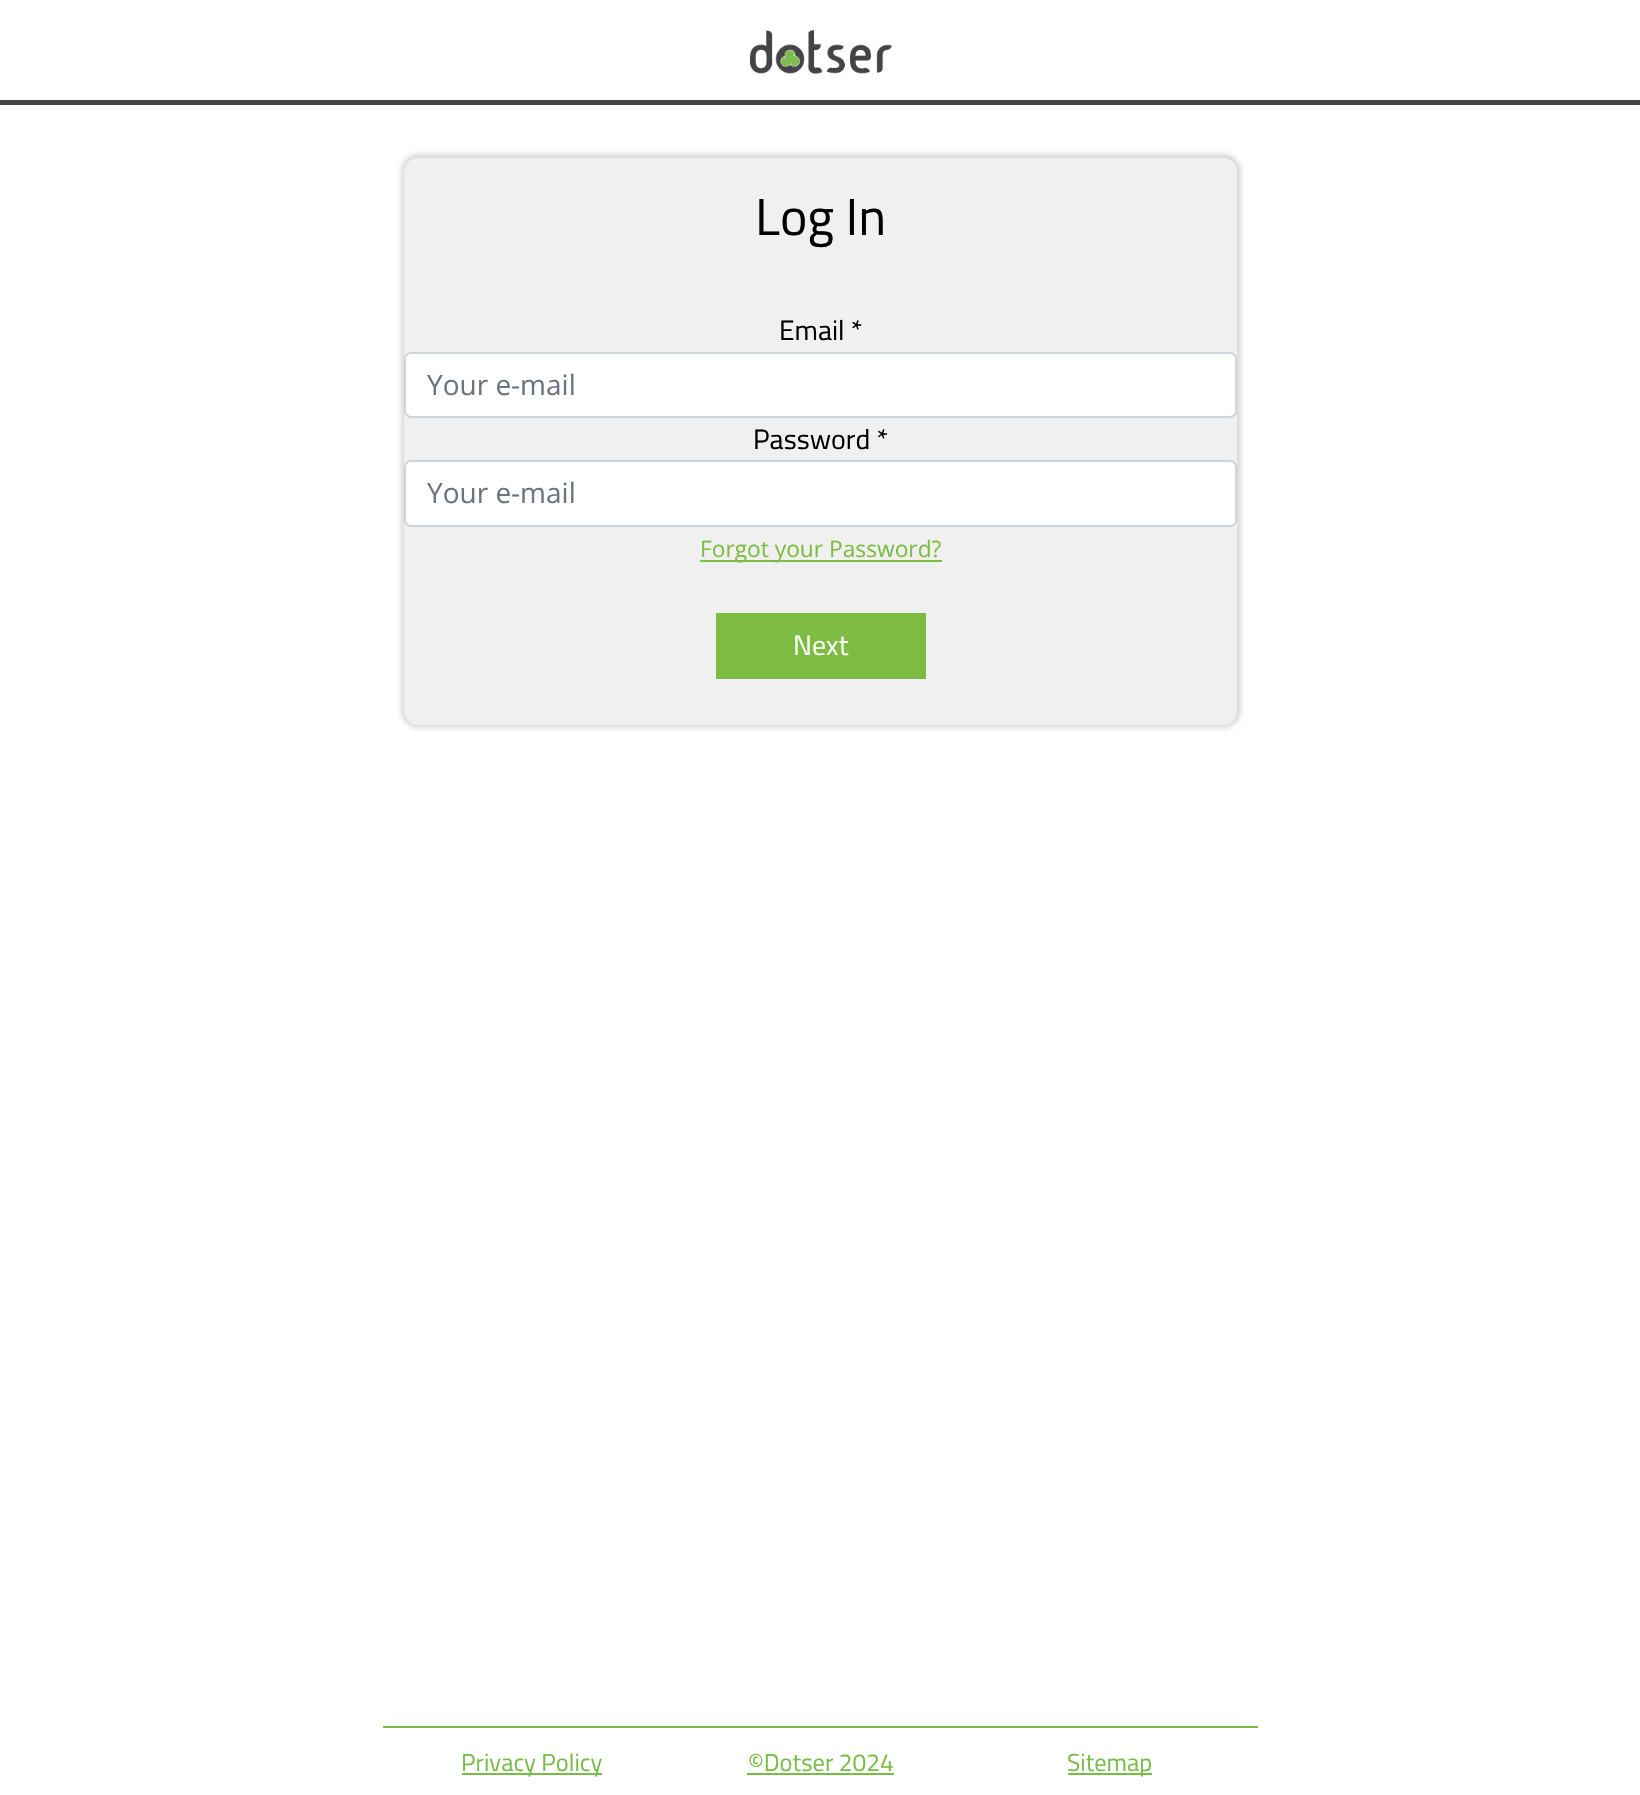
void draw(SkCanvas* canvas) {
    SkPaint paint;
    paint.setAntiAlias(true);
    auto face = [&](const char* family, int weight, float size, bool italic = false) {
        SkFontStyle style(weight, SkFontStyle::kNormal_Width,
            italic ? SkFontStyle::kItalic_Slant : SkFontStyle::kUpright_Slant);
        SkFont result(fontMgr->matchFamilyStyle(family, style), size);
        result.setSubpixel(true);
        return result;
    };
    auto write = [&](const char* s, float x, float y, const SkFont& font, SkColor color) {
        SkPaint ink(SkColor4f::FromColor(color));
        ink.setAntiAlias(true);
        canvas->drawString(s, x, y, font, ink);
    };
    auto block = [&](float x, float y, float w, float h, SkColor color) {
        SkPaint ink(SkColor4f::FromColor(color));
        ink.setAntiAlias(true);
        canvas->drawRect(SkRect::MakeXYWH(x, y, w, h), ink);
    };
    auto card = [&](float x, float y, float w, float h, float radius, SkColor color) {
        SkPaint ink(SkColor4f::FromColor(color));
        ink.setAntiAlias(true);
        canvas->drawRoundRect(SkRect::MakeXYWH(x, y, w, h), radius, radius, ink);
    };
    auto paste = [&](const char* path, float x, float y, float w, float h) {
        auto image = SkImages::DeferredFromEncodedData(SkData::MakeFromFileName(path));
        canvas->drawImageRect(image, SkRect::MakeXYWH(x, y, w, h), SkSamplingOptions());
    };
    canvas->clear(SK_ColorWHITE);
    block(0, 100, 1640, 5, SkColorSetRGB(69, 66, 69));
    paste("pic1.png", 750, 30, 142, 44);
    paint.setColor(SkColorSetARGB(38, 0, 0, 0));
    paint.setMaskFilter(SkMaskFilter::MakeBlur(kNormal_SkBlurStyle, 2.5f));
    canvas->drawRoundRect(SkRect::MakeXYWH(401, 154, 840, 574), 18, 18, paint);
    paint.setMaskFilter(nullptr);
    card(404, 158, 833, 567, 14, SkColorSetRGB(240, 240, 240));
    auto kFont1 = face("Titillium Web", 400, 52);
    write("Log In", 755, 235, kFont1, SK_ColorBLACK);
    auto kFont2 = face("Titillium Web", 400, 28);
    write("Email *", 779, 340, kFont2, SK_ColorBLACK);
    paint.setColor(SK_ColorWHITE);
    canvas->drawRoundRect(SkRect::MakeXYWH(405, 353, 831, 64), 6, 6, paint);
    paint.setStyle(SkPaint::kStroke_Style);
    paint.setStrokeWidth(2);
    paint.setColor(SkColorSetRGB(206, 212, 218));
    canvas->drawRoundRect(SkRect::MakeXYWH(405, 353, 831, 64), 6, 6, paint);
    auto kFont3 = face("Open Sans", 400, 28);
    write("Your e-mail", 427, 395, kFont3, SkColorSetRGB(108, 117, 125));
    write("Password *", 753, 449, kFont2, SK_ColorBLACK);
    paint.setStyle(SkPaint::kFill_Style);
    paint.setColor(SK_ColorWHITE);
    canvas->drawRoundRect(SkRect::MakeXYWH(405, 461, 831, 65), 6, 6, paint);
    paint.setStyle(SkPaint::kStroke_Style);
    paint.setColor(SkColorSetRGB(206, 212, 218));
    canvas->drawRoundRect(SkRect::MakeXYWH(405, 461, 831, 65), 6, 6, paint);
    write("Your e-mail", 427, 503, kFont3, SkColorSetRGB(108, 117, 125));
    block(700, 560, 242, 2, SkColorSetRGB(125, 188, 66));
    auto kFont4 = face("Open Sans", 400, 22.75f);
    write("Forgot your Password?", 700, 557, kFont4, SkColorSetRGB(125, 188, 66));
    block(716, 613, 210, 66, SkColorSetRGB(125, 188, 66));
    write("Next", 793, 655, kFont2, SK_ColorWHITE);
    block(383, 1726, 875, 2, SkColorSetRGB(120, 188, 72));
    block(462, 1773, 140, 2, SkColorSetRGB(120, 188, 72));
    auto kFont5 = face("Titillium Web", 400, 24.5f);
    write("Privacy Policy", 461, 1771, kFont5, SkColorSetRGB(120, 188, 72));
    write("©Dotser 2024", 748, 1771, kFont5, SkColorSetRGB(120, 188, 72));
    block(747, 1773, 147, 2, SkColorSetRGB(120, 188, 72));
    block(1068, 1773, 84, 2, SkColorSetRGB(120, 188, 72));
    write("Sitemap", 1067, 1771, kFont5, SkColorSetRGB(120, 188, 72));
}
